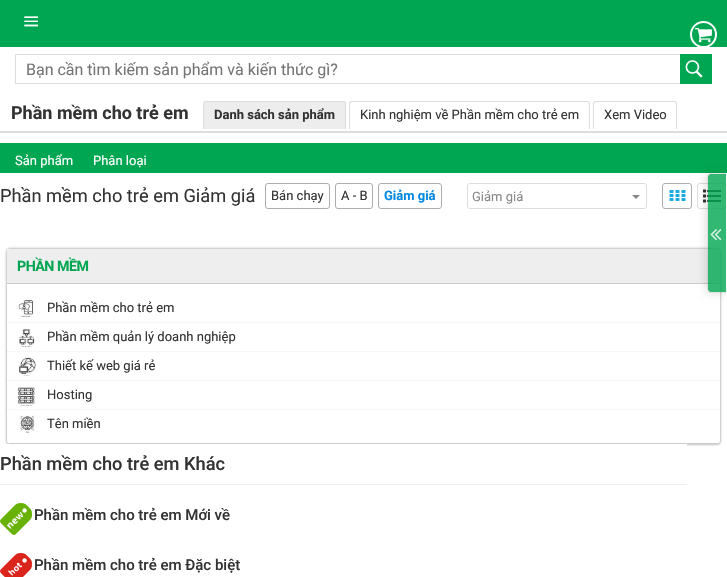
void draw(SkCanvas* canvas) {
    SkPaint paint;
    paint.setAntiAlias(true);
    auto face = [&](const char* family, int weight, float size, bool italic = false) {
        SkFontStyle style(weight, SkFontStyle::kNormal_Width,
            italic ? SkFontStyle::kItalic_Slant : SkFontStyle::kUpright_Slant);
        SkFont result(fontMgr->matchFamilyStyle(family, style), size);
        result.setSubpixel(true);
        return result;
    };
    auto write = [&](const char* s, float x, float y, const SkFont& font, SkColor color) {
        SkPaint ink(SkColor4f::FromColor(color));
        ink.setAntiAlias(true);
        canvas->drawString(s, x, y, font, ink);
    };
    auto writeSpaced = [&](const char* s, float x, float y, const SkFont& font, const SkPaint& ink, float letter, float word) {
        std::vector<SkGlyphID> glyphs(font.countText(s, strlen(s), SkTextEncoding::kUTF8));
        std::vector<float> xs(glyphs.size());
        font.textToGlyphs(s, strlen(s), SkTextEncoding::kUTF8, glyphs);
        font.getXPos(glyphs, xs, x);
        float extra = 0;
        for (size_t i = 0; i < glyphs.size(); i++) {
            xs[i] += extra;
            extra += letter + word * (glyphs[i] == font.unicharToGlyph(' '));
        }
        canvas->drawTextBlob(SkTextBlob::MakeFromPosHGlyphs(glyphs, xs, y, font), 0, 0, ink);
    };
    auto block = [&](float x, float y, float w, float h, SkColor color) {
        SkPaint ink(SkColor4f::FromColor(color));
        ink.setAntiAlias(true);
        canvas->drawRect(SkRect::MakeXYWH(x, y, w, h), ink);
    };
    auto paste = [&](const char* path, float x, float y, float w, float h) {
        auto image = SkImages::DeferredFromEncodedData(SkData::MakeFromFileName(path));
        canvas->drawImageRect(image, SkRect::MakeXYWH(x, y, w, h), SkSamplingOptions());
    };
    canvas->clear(SK_ColorWHITE);
    block(0, 0, 727, 47, SkColorSetRGB(0, 166, 81));
    auto kFont1 = face("Liberation Serif", 400, 29);
    write("≡", 23, 31, kFont1, SK_ColorWHITE);
    paint.setStyle(SkPaint::kStroke_Style);
    paint.setStrokeWidth(2);
    paint.setColor(SK_ColorWHITE);
    canvas->drawCircle(703.5f, 34.5f, 12.5f, paint);
    paste("pic1.png", 695, 28, 17, 15);
    block(15, 54, 665, 1, SkColorSetRGB(221, 221, 221));
    block(15, 83, 665, 1, SkColorSetRGB(221, 221, 221));
    block(15, 54, 1, 30, SkColorSetRGB(221, 221, 221));
    auto kFont2 = face("Roboto", 400, 16);
    write("Bạn cần tìm kiếm sản phẩm và kiến thức gì?", 26, 75, kFont2, SkColorSetRGB(117, 117, 117));
    block(680, 54, 32, 30, SkColorSetRGB(0, 166, 81));
    paste("pic2.png", 685, 60, 18, 18);
    block(0, 131, 727, 2, SkColorSetRGB(221, 221, 221));
    auto kFont3 = face("Roboto", 700, 18);
    write("Phần mềm cho trẻ em", 11, 119, kFont3, SkColorSetRGB(51, 51, 51));
    paint.setStyle(SkPaint::kFill_Style);
    paint.setColor(SkColorSetRGB(237, 237, 237));
    canvas->drawPath(SkPathBuilder().moveTo(206, 101).lineTo(343, 101).cubicTo(344.5f, 101, 346, 102.5f, 346, 104).lineTo(346, 129).lineTo(203, 129).lineTo(203, 104).cubicTo(203, 102.5f, 204.5f, 101, 206, 101).close().detach(), paint);
    paint.setColor(SkColorSetRGB(221, 221, 221));
    canvas->drawPath(SkPathBuilder(SkPathFillType::kEvenOdd).moveTo(206, 101).lineTo(343, 101).cubicTo(345, 101, 346, 102, 346, 104).lineTo(346, 129).lineTo(203, 129).lineTo(203, 104).cubicTo(203, 102, 204, 101, 206, 101).close().moveTo(206, 102).lineTo(343, 102).cubicTo(344, 102, 345, 103, 345, 104).lineTo(345, 129).lineTo(204, 129).lineTo(204, 104).cubicTo(204, 103, 205, 102, 206, 102).close().detach(), paint);
    auto kFont4 = face("Roboto", 700, 13);
    write("Danh sách sản phẩm", 214, 119, kFont4, SkColorSetRGB(51, 51, 51));
    canvas->drawPath(SkPathBuilder(SkPathFillType::kEvenOdd).moveTo(352, 101).lineTo(587, 101).cubicTo(589, 101, 590, 102, 590, 104).lineTo(590, 129).lineTo(349, 129).lineTo(349, 104).cubicTo(349, 102, 350, 101, 352, 101).close().moveTo(352, 102).lineTo(587, 102).cubicTo(588, 102, 589, 103, 589, 104).lineTo(589, 129).lineTo(350, 129).lineTo(350, 104).cubicTo(350, 103, 351, 102, 352, 102).close().detach(), paint);
    auto kFont5 = face("Roboto", 400, 13);
    write("Kinh nghiệm về Phần mềm cho trẻ em", 360, 119, kFont5, SkColorSetRGB(51, 51, 51));
    canvas->drawPath(SkPathBuilder(SkPathFillType::kEvenOdd).moveTo(596, 101).lineTo(674, 101).cubicTo(676, 101, 677, 102, 677, 104).lineTo(677, 129).lineTo(593, 129).lineTo(593, 104).cubicTo(593, 102, 594, 101, 596, 101).close().moveTo(596, 102).lineTo(674, 102).cubicTo(675, 102, 676, 103, 676, 104).lineTo(676, 129).lineTo(594, 129).lineTo(594, 104).cubicTo(594, 103, 595, 102, 596, 102).close().detach(), paint);
    write("Xem Video", 604, 119, kFont5, SkColorSetRGB(51, 51, 51));
    block(0, 143, 727, 30, SkColorSetRGB(0, 166, 81));
    write("Sản phẩm", 15, 165, kFont5, SK_ColorWHITE);
    write("Phân loại", 93, 165, kFont5, SK_ColorWHITE);
    auto kFont6 = face("Roboto", 400, 18.25f);
    write("Phần mềm cho trẻ em Giảm giá", 0, 202, kFont6, SkColorSetRGB(51, 51, 51));
    paint.setStyle(SkPaint::kStroke_Style);
    paint.setStrokeWidth(1);
    paint.setColor(SkColorSetRGB(173, 173, 173));
    canvas->drawRoundRect(SkRect::MakeXYWH(265.5f, 183.5f, 64, 25), 2.5f, 2.5f, paint);
    write("Bán chạy", 271, 200, kFont5, SkColorSetRGB(51, 51, 51));
    canvas->drawRoundRect(SkRect::MakeXYWH(335.5f, 183.5f, 37, 25), 2.5f, 2.5f, paint);
    write("A - B", 341, 200, kFont5, SkColorSetRGB(51, 51, 51));
    canvas->drawRoundRect(SkRect::MakeXYWH(378.5f, 183.5f, 63, 25), 2.5f, 2.5f, paint);
    write("Giảm giá", 384, 200, kFont4, SkColorSetRGB(0, 137, 224));
    paint.setColor(SkColorSetRGB(221, 221, 221));
    canvas->drawRoundRect(SkRect::MakeXYWH(467.5f, 183.5f, 179, 25), 2.5f, 2.5f, paint);
    write("Giảm giá", 472, 201, kFont5, SkColorSetRGB(136, 136, 136));
    paint.setStyle(SkPaint::kFill_Style);
    paint.setColor(SkColorSetRGB(136, 136, 136));
    canvas->drawPath(SkPathBuilder().moveTo(632, 195).lineTo(640, 195).lineTo(636, 199).close().detach(), paint);
    paste("pic3.png", 669, 190, 17, 11);
    paint.setStyle(SkPaint::kStroke_Style);
    paint.setColor(SkColorSetRGB(173, 173, 173));
    canvas->drawRoundRect(SkRect::MakeXYWH(662.5f, 183.5f, 29, 25), 2.5f, 2.5f, paint);
    paste("pic4.png", 703, 189, 18, 14);
    paint.setColor(SkColorSetRGB(221, 221, 221));
    canvas->drawRoundRect(SkRect::MakeXYWH(697.5f, 183.5f, 29, 25), 2.5f, 2.5f, paint);
    canvas->save();
    canvas->clipPath(SkPathBuilder(SkPathFillType::kEvenOdd).moveTo(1, 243).lineTo(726, 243).lineTo(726, 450).lineTo(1, 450).close().moveTo(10, 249).lineTo(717, 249).cubicTo(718.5f, 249, 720, 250.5f, 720, 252).lineTo(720, 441).cubicTo(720, 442.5f, 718.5f, 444, 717, 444).lineTo(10, 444).cubicTo(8.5f, 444, 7, 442.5f, 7, 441).lineTo(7, 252).cubicTo(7, 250.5f, 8.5f, 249, 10, 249).close().detach(), true);
    paint.setStyle(SkPaint::kFill_Style);
    paint.setColor(SkColorSetARGB(128, 0, 0, 0));
    paint.setMaskFilter(SkMaskFilter::MakeBlur(kNormal_SkBlurStyle, 1.5f));
    canvas->drawRoundRect(SkRect::MakeXYWH(7, 249, 713, 195), 3, 3, paint);
    paint.setMaskFilter(nullptr);
    canvas->restore();
    block(9, 443, 710, 1, SkColorSetRGB(204, 204, 204));
    block(7, 249, 713, 34, SkColorSetRGB(238, 238, 238));
    block(7, 283, 713, 1, SkColorSetRGB(204, 204, 204));
    canvas->save();
    canvas->clipPath(SkPathBuilder(SkPathFillType::kEvenOdd).moveTo(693, 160).lineTo(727, 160).lineTo(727, 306).lineTo(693, 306).close().moveTo(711, 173).lineTo(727, 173).lineTo(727, 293).lineTo(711, 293).cubicTo(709, 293, 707, 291, 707, 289).lineTo(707, 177).cubicTo(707, 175, 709, 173, 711, 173).close().detach(), true);
    paint.setColor(SkColorSetARGB(36, 0, 0, 0));
    paint.setMaskFilter(SkMaskFilter::MakeBlur(kNormal_SkBlurStyle, 4));
    canvas->drawRoundRect(SkRect::MakeXYWH(706, 173, 20, 120), 4, 4, paint);
    paint.setMaskFilter(nullptr);
    canvas->restore();
    paint.setColor(SkColorSetARGB(204, 0, 166, 81));
    canvas->drawPath(SkPathBuilder().moveTo(711, 174).lineTo(726, 174).lineTo(726, 292).lineTo(711, 292).cubicTo(709.5f, 292, 708, 290.5f, 708, 289).lineTo(708, 177).cubicTo(708, 175.5f, 709.5f, 174, 711, 174).close().detach(), paint);
    paint.setColor(SkColorSetARGB(38, 51, 51, 51));
    canvas->drawPath(SkPathBuilder().moveTo(711, 173).cubicTo(710, 173, 709, 173.5f, 708, 174).lineTo(709, 175).cubicTo(710.5f, 173, 723.5f, 174, 726, 174).lineTo(727, 173).close().detach(), paint);
    paint.setColor(SkColorSetARGB(204, 255, 255, 255));
    canvas->drawPath(SkPathBuilder().moveTo(727, 173).lineTo(726, 174).lineTo(726, 292).lineTo(727, 293).close().detach(), paint);
    paint.setColor(SkColorSetARGB(31, 0, 0, 0));
    canvas->drawPath(SkPathBuilder().moveTo(727, 293).lineTo(726, 292).cubicTo(723.5f, 292, 710.5f, 293, 709, 291).lineTo(708, 292).cubicTo(709, 292.5f, 710, 293, 711, 293).close().detach(), paint);
    canvas->drawPath(SkPathBuilder().moveTo(707, 177).lineTo(707, 289).lineTo(708, 292).lineTo(709, 291).lineTo(708, 289).lineTo(708, 177).lineTo(709, 175).lineTo(708, 174).close().detach(), paint);
    paste("pic5.png", 710, 229, 12, 12);
    auto kFont7 = face("Roboto", 700, 14.25f);
    paint.setColor(SkColorSetRGB(0, 166, 81));
    writeSpaced("PHẦN MỀM", 17, 271, kFont7, paint, -0.5f, 0);
    paint.setStyle(SkPaint::kStroke_Style);
    paint.setColor(SkColorSetRGB(239, 239, 239));
    paint.setPathEffect(SkDashPathEffect::Make({{1, 1}}, 0));
    canvas->drawPath(SkPathBuilder().moveTo(7, 322.5f).lineTo(720, 322.5f).detach(), paint);
    paint.setPathEffect(nullptr);
    paste("pic6.png", 18, 300, 16, 17);
    write("Phần mềm cho trẻ em", 47, 312, kFont5, SkColorSetRGB(51, 51, 51));
    paint.setPathEffect(SkDashPathEffect::Make({{1, 1}}, 0));
    canvas->drawPath(SkPathBuilder().moveTo(7, 351.5f).lineTo(720, 351.5f).detach(), paint);
    paint.setPathEffect(nullptr);
    paste("pic7.png", 18, 328, 17, 19);
    write("Phần mềm quản lý doanh nghiệp", 47, 341, kFont5, SkColorSetRGB(51, 51, 51));
    paint.setPathEffect(SkDashPathEffect::Make({{1, 1}}, 0));
    canvas->drawPath(SkPathBuilder().moveTo(7, 380.5f).lineTo(720, 380.5f).detach(), paint);
    paint.setPathEffect(nullptr);
    paste("pic8.png", 19, 356, 17, 20);
    write("Thiết kế web giá rẻ", 47, 370, kFont5, SkColorSetRGB(51, 51, 51));
    paint.setPathEffect(SkDashPathEffect::Make({{1, 1}}, 0));
    canvas->drawPath(SkPathBuilder().moveTo(7, 409.5f).lineTo(720, 409.5f).detach(), paint);
    paint.setPathEffect(nullptr);
    paste("pic9.png", 17, 387, 19, 19);
    write("Hosting", 47, 399, kFont5, SkColorSetRGB(51, 51, 51));
    paste("pic10.png", 19, 415, 16, 18);
    write("Tên miền", 47, 428, kFont5, SkColorSetRGB(51, 51, 51));
    block(5, 444, 682, 3, SK_ColorWHITE);
    block(0, 484, 687, 1, SkColorSetRGB(238, 238, 238));
    auto kFont8 = face("Roboto", 500, 18.25f);
    write("Phần mềm cho trẻ em Khác", 0, 470, kFont8, SkColorSetRGB(51, 51, 51));
    paste("pic11.png", 0, 503, 32, 32);
    auto kFont9 = face("Roboto", 500, 15);
    write("Phần mềm cho trẻ em Mới về", 34, 520, kFont9, SkColorSetRGB(51, 51, 51));
    paste("pic12.png", 0, 553, 32, 24);
    write("Phần mềm cho trẻ em Đặc biệt", 34, 570, kFont9, SkColorSetRGB(51, 51, 51));
}
